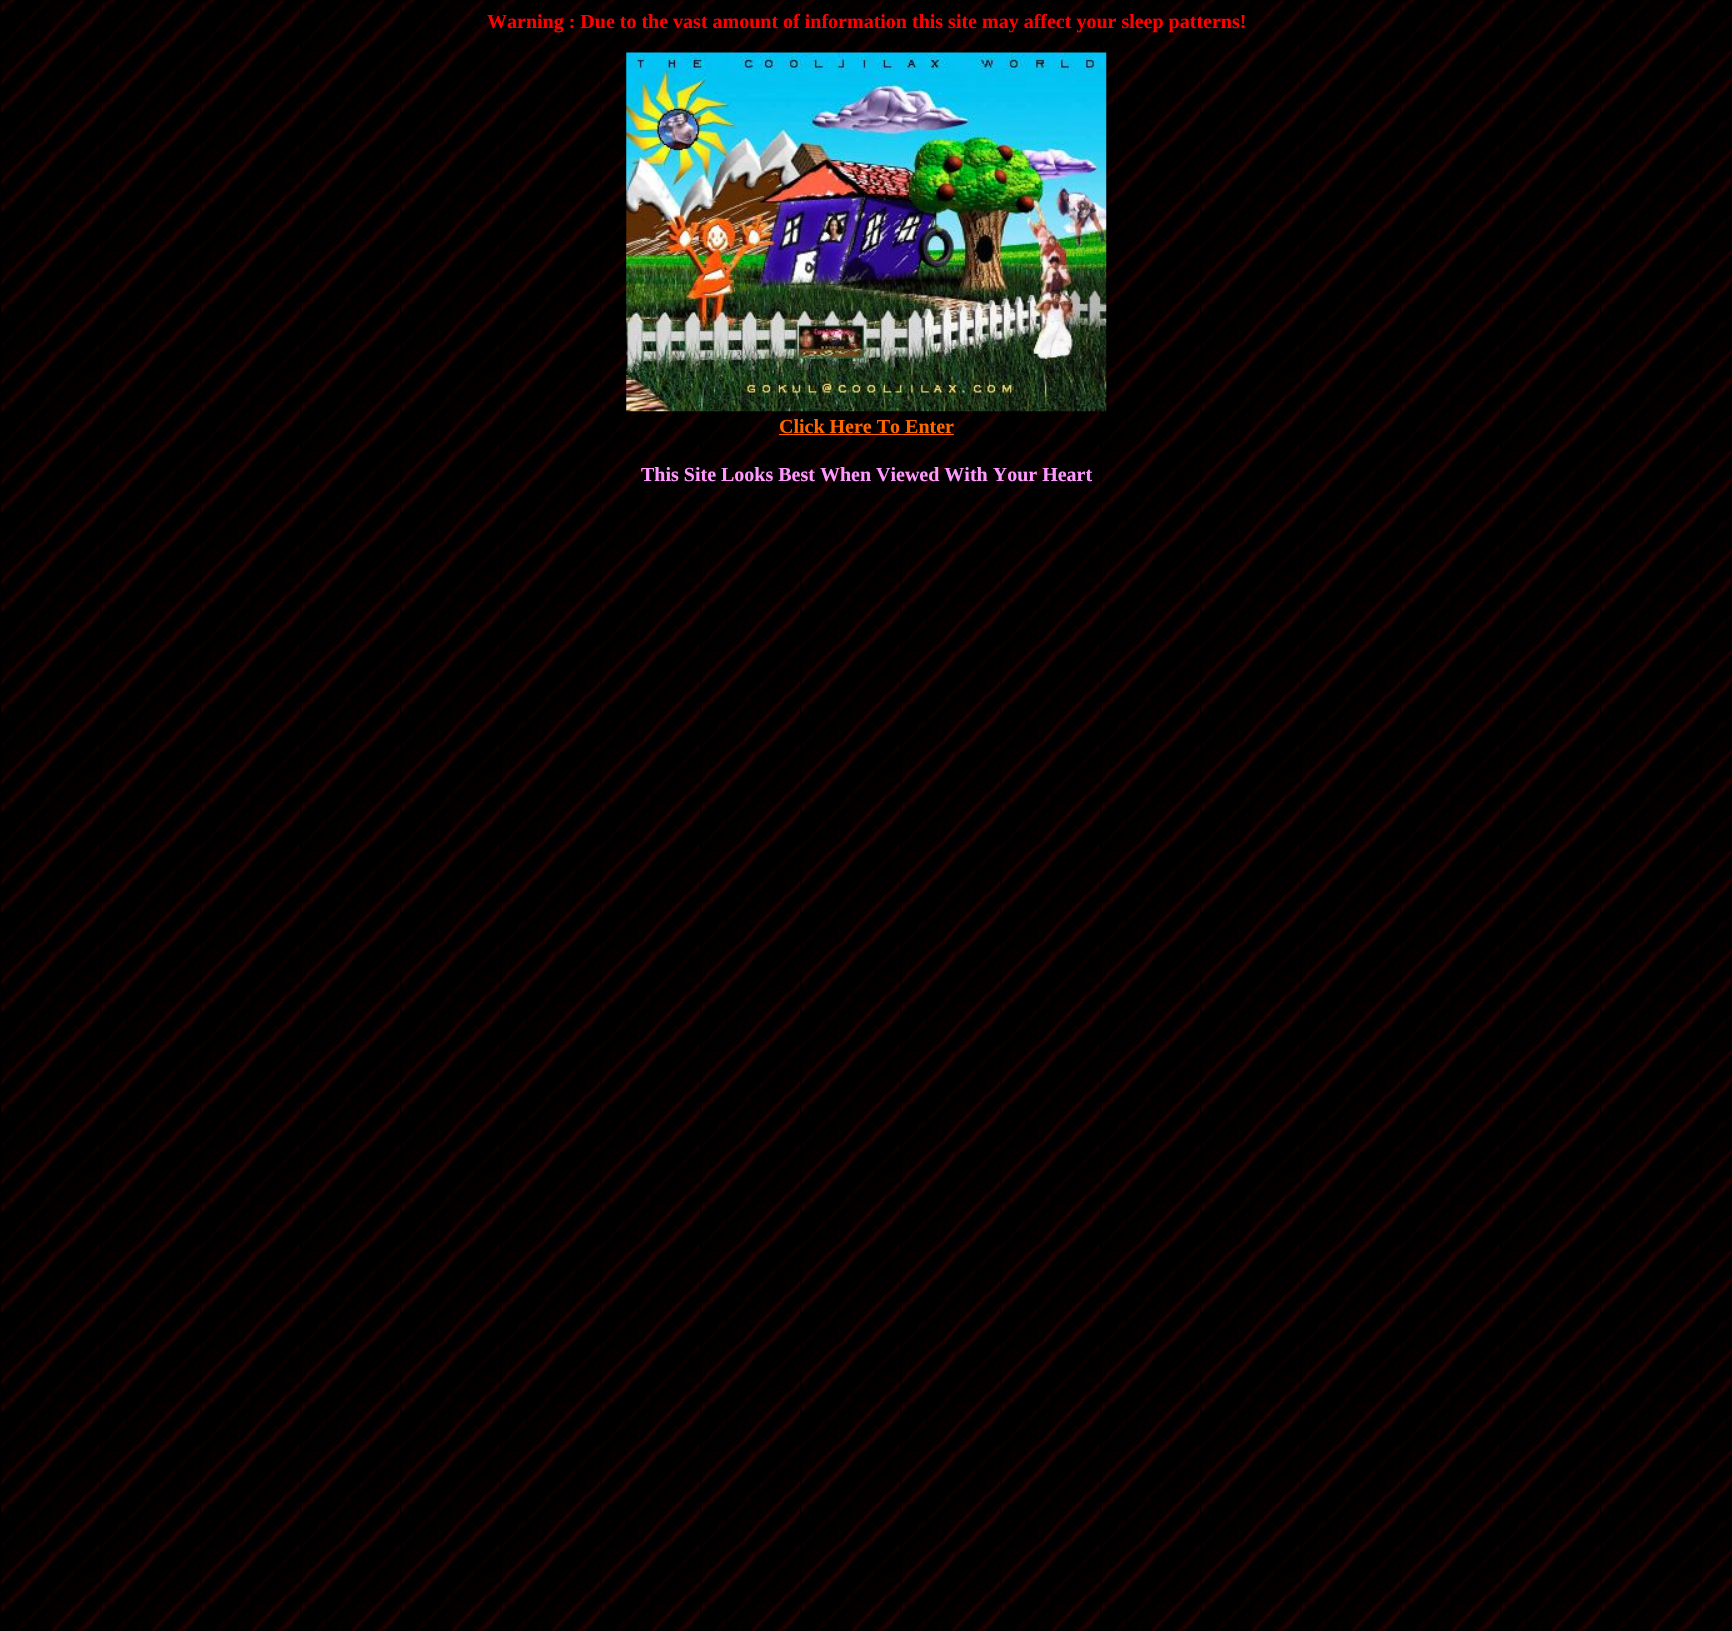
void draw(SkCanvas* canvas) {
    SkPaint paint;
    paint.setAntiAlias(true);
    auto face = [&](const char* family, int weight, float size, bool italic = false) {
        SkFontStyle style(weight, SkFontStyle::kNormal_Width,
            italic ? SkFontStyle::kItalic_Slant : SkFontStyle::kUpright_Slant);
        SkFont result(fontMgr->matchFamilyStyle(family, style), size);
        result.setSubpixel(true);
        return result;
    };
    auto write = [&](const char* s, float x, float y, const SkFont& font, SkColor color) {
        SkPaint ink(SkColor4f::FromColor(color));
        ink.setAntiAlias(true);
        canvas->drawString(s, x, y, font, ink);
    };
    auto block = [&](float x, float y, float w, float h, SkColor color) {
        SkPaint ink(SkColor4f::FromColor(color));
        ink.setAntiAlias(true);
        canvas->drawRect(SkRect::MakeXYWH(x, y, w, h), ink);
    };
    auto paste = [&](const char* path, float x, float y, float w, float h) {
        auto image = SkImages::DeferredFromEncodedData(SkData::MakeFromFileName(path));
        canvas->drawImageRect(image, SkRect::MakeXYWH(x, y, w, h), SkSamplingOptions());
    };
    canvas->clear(SK_ColorWHITE);
    paste("pic1.png", 0, 0, 1732, 1631);
    auto kFont1 = face("Liberation Serif", 700, 20);
    write("Warning : Due to the vast amount of information this site may affect your sleep patterns!", 487, 28, kFont1, SkColorSetRGB(255, 0, 0));
    paste("pic2.png", 626, 52, 481, 360);
    write("Click Here To Enter", 779, 433, kFont1, SkColorSetRGB(255, 102, 0));
    block(779, 434, 175, 1, SkColorSetRGB(255, 102, 0));
    write("This Site Looks Best When Viewed With Your Heart", 641, 481, kFont1, SkColorSetRGB(255, 153, 255));
}
